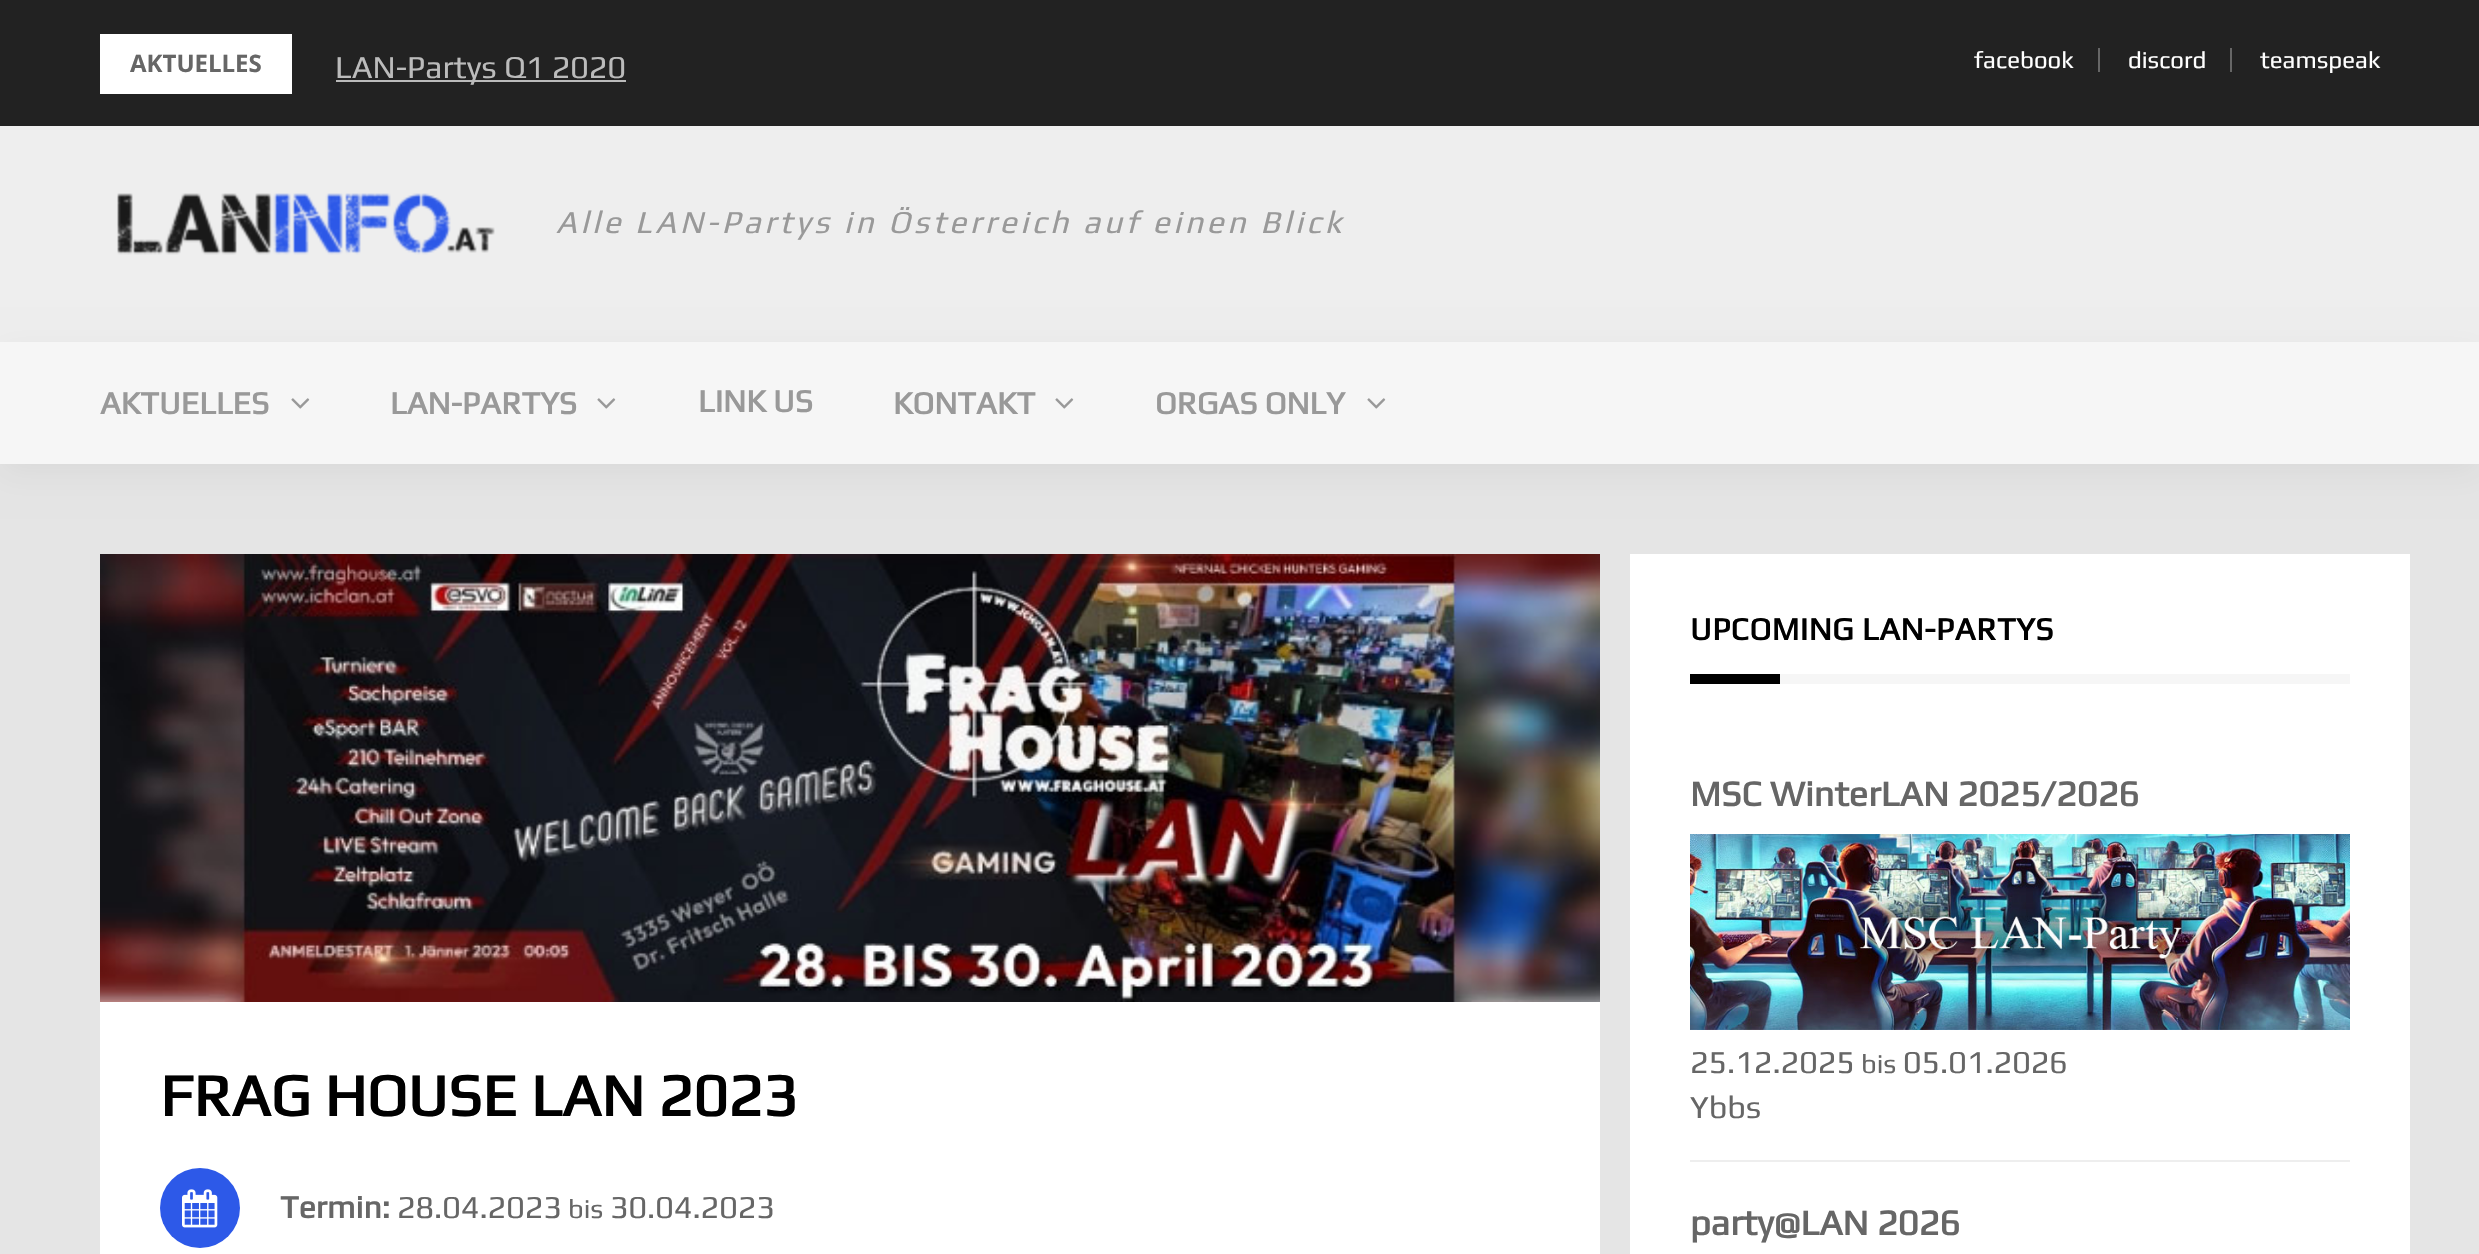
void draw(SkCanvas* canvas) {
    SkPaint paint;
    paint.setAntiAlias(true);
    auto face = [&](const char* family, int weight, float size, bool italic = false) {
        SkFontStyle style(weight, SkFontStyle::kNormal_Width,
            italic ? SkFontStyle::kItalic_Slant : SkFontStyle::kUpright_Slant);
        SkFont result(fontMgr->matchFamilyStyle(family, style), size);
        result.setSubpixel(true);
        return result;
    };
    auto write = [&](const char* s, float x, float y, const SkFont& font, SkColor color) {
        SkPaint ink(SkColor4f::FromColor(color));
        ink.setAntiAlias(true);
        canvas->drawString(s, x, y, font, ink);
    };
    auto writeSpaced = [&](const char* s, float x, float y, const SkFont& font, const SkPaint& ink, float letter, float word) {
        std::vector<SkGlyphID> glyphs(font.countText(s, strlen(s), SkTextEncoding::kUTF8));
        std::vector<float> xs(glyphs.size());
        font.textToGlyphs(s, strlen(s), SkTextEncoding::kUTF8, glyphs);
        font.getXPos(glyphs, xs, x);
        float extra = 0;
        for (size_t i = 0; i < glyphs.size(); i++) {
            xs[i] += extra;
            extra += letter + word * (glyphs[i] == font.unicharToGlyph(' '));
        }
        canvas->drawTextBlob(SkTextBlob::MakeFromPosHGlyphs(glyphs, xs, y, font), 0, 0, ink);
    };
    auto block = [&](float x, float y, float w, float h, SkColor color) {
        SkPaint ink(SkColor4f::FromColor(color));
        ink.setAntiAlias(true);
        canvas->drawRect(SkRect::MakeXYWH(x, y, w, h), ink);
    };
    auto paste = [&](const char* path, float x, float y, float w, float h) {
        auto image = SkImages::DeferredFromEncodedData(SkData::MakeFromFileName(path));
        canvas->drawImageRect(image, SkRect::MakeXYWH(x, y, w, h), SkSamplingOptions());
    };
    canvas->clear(SkColorSetRGB(229, 229, 229));
    block(0, 0, 2479, 126, SkColorSetRGB(34, 34, 34));
    block(100, 34, 192, 60, SK_ColorWHITE);
    auto kFont1 = face("Open Sans", 700, 24);
    write("AKTUELLES", 130, 72, kFont1, SkColorSetRGB(102, 102, 102));
    block(336, 80, 290, 2, SkColorSetRGB(187, 187, 187));
    auto kFont2 = face("Play", 400, 32);
    write("LAN-Partys Q1 2020", 335, 78, kFont2, SkColorSetRGB(187, 187, 187));
    block(2098, 48, 2, 24, SkColorSetRGB(102, 102, 102));
    auto kFont3 = face("Play", 400, 24);
    write("facebook", 1974, 68, kFont3, SK_ColorWHITE);
    block(2230, 48, 2, 24, SkColorSetRGB(102, 102, 102));
    write("discord", 2128, 68, kFont3, SK_ColorWHITE);
    write("teamspeak", 2260, 68, kFont3, SK_ColorWHITE);
    block(0, 126, 2479, 216, SkColorSetRGB(238, 238, 238));
    paste("pic1.png", 117, 193, 378, 62);
    auto kFont4 = face("Play", 400, 32, true);
    paint.setColor(SkColorSetRGB(153, 153, 153));
    writeSpaced("Alle LAN-Partys in Österreich auf einen Blick", 556, 233, kFont4, paint, 3.6f, 0);
    paint.setColor(SkColorSetARGB(13, 0, 0, 0));
    paint.setMaskFilter(SkMaskFilter::MakeBlur(kNormal_SkBlurStyle, 15));
    canvas->drawRect(SkRect::MakeXYWH(0, 352, 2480, 122), paint);
    paint.setMaskFilter(nullptr);
    block(0, 342, 2479, 122, SkColorSetRGB(246, 246, 246));
    auto kFont5 = face("Play", 700, 32);
    write("AKTUELLES", 100, 414, kFont5, SkColorSetRGB(153, 153, 153));
    paste("pic2.png", 291, 398, 19, 11);
    write("LAN-PARTYS", 390, 414, kFont5, SkColorSetRGB(153, 153, 153));
    paste("pic2.png", 597, 398, 19, 11);
    write("LINK US", 698, 412, kFont5, SkColorSetRGB(153, 153, 153));
    write("KONTAKT", 893, 414, kFont5, SkColorSetRGB(153, 153, 153));
    paste("pic2.png", 1055, 398, 19, 11);
    write("ORGAS ONLY", 1155, 414, kFont5, SkColorSetRGB(153, 153, 153));
    paste("pic2.png", 1367, 398, 19, 11);
    block(100, 1002, 1500, 252, SK_ColorWHITE);
    paste("pic3.png", 100, 554, 1500, 448);
    auto kFont6 = face("Play", 700, 60);
    write("FRAG HOUSE LAN 2023", 160, 1116, kFont6, SK_ColorBLACK);
    paint.setColor(SkColorSetRGB(45, 89, 232));
    canvas->drawCircle(200, 1208, 40, paint);
    paste("pic4.png", 182, 1189, 36, 39);
    write("Termin:", 280, 1218, kFont5, SkColorSetRGB(102, 102, 102));
    write("28.04.2023", 397, 1218, kFont2, SkColorSetRGB(102, 102, 102));
    auto kFont7 = face("Play", 400, 27);
    write("bis", 568, 1218, kFont7, SkColorSetRGB(102, 102, 102));
    write("30.04.2023", 610, 1218, kFont2, SkColorSetRGB(102, 102, 102));
    block(1630, 554, 780, 700, SK_ColorWHITE);
    block(1780, 674, 570, 10, SkColorSetRGB(246, 246, 246));
    paint.setColor(SK_ColorBLACK);
    writeSpaced("UPCOMING LAN-PARTYS", 1690, 640, kFont5, paint, 0.5f, 0);
    block(1690, 674, 90, 10, SK_ColorBLACK);
    block(1690, 1160, 660, 2, SkColorSetRGB(238, 238, 238));
    auto kFont8 = face("Play", 700, 36);
    write("MSC WinterLAN 2025/2026", 1690, 806, kFont8, SkColorSetRGB(102, 102, 102));
    paste("pic5.png", 1690, 834, 660, 196);
    write("25.12.2025", 1690, 1073, kFont2, SkColorSetRGB(102, 102, 102));
    write("bis", 1861, 1073, kFont7, SkColorSetRGB(102, 102, 102));
    write("05.01.2026", 1903, 1073, kFont2, SkColorSetRGB(102, 102, 102));
    write("Ybbs", 1690, 1118, kFont2, SkColorSetRGB(102, 102, 102));
    write("party@LAN 2026", 1690, 1235, kFont8, SkColorSetRGB(102, 102, 102));
}
